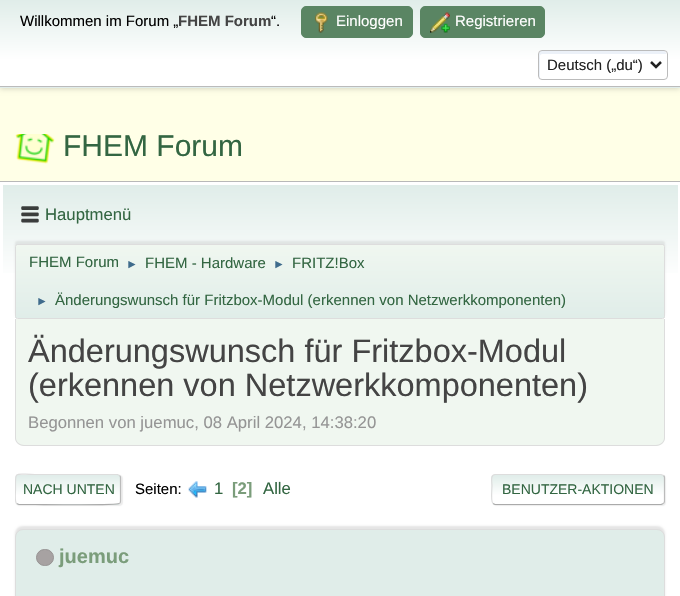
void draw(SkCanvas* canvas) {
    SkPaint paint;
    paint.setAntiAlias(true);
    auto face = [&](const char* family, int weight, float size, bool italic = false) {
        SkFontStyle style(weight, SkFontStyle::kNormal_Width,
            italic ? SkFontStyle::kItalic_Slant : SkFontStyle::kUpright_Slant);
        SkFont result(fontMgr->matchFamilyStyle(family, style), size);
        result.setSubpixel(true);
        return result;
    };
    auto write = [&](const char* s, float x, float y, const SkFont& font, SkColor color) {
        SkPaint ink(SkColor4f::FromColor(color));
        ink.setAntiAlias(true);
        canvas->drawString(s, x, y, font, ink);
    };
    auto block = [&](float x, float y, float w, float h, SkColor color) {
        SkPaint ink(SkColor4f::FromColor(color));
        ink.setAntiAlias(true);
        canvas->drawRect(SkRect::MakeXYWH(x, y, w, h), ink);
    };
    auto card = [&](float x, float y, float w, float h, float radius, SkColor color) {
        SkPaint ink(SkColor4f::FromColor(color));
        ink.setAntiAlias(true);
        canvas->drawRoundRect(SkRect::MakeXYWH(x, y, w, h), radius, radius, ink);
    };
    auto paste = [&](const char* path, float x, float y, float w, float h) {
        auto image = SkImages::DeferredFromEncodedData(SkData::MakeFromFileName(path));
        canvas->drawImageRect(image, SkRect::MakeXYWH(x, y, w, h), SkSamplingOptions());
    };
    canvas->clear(SkColorSetRGB(255, 255, 231));
    paint.setColor(SkColorSetARGB(41, 0, 0, 0));
    paint.setMaskFilter(SkMaskFilter::MakeBlur(kNormal_SkBlurStyle, 2.5f));
    canvas->drawRect(SkRect::MakeXYWH(0, 1, 680, 88), paint);
    paint.setMaskFilter(nullptr);
    {
        const SkColor colors[] = {SkColorSetRGB(224, 237, 233), SK_ColorWHITE};
        const float stops[] = {0, 0.7f};
        const SkPoint ends[] = {{340, 0}, {340, 86}};
        paint.setShader(SkGradientShader::MakeLinear(ends, colors, stops, 2, SkTileMode::kClamp));
        paint.setAlpha(255);
    }
    canvas->drawRect(SkRect::MakeXYWH(0, 0, 680, 86), paint);
    {
        const SkColor colors[] = {SkColorSetRGB(224, 237, 233), SK_ColorWHITE};
        const float stops[] = {0, 0.7f};
        const SkPoint ends[] = {{340, 86}, {340, 173}};
        paint.setShader(SkGradientShader::MakeLinear(ends, colors, stops, 2, SkTileMode::kClamp));
        paint.setAlpha(255);
    }
    canvas->drawRect(SkRect::MakeXYWH(0, 87, 680, 1), paint);
    block(0, 86, 680, 1, SkColorSetRGB(187, 187, 187));
    auto kFont1 = face("Liberation Sans", 400, 15);
    write("Willkommen im Forum „", 20, 26, kFont1, SK_ColorBLACK);
    auto kFont2 = face("Liberation Sans", 700, 15);
    write("FHEM Forum", 178, 26, kFont2, SkColorSetRGB(68, 68, 68));
    write("“.", 271, 26, kFont1, SK_ColorBLACK);
    paint.setShader(nullptr);
    paint.setColor(SkColorSetRGB(90, 133, 99));
    canvas->drawRoundRect(SkRect::MakeXYWH(301.5f, 6.5f, 111, 31), 4.5f, 4.5f, paint);
    paint.setStyle(SkPaint::kStroke_Style);
    paint.setStrokeWidth(1);
    canvas->drawRoundRect(SkRect::MakeXYWH(301.5f, 6.5f, 111, 31), 4.5f, 4.5f, paint);
    paste("pic1.png", 315, 12, 13, 21);
    write("Einloggen", 336, 26, kFont1, SK_ColorWHITE);
    paint.setStyle(SkPaint::kFill_Style);
    canvas->drawRoundRect(SkRect::MakeXYWH(420.5f, 6.5f, 124, 31), 4.5f, 4.5f, paint);
    paint.setStyle(SkPaint::kStroke_Style);
    canvas->drawRoundRect(SkRect::MakeXYWH(420.5f, 6.5f, 124, 31), 4.5f, 4.5f, paint);
    paste("pic2.png", 430, 12, 20, 21);
    write("Registrieren", 455, 26, kFont1, SK_ColorWHITE);
    card(538, 50, 130, 30, 4, SK_ColorWHITE);
    paint.setStyle(SkPaint::kFill_Style);
    paint.setColor(SkColorSetRGB(236, 241, 248));
    canvas->drawPath(SkPathBuilder().moveTo(542, 54).lineTo(666, 54).cubicTo(666, 52, 665, 51, 664, 51).lineTo(542, 51).cubicTo(540, 51, 539, 52, 539, 54).lineTo(539, 76).cubicTo(539, 77, 539, 78, 540, 79).lineTo(540, 56).cubicTo(540, 55, 541, 54, 542, 54).close().detach(), paint);
    paint.setStyle(SkPaint::kStroke_Style);
    paint.setColor(SkColorSetRGB(187, 187, 187));
    canvas->drawRoundRect(SkRect::MakeXYWH(538.5f, 50.5f, 129, 29), 3.5f, 3.5f, paint);
    paint.setStrokeWidth(2.5f);
    paint.setColor(SkColorSetRGB(34, 34, 34));
    canvas->drawPath(SkPathBuilder().moveTo(651, 62).lineTo(656, 67).lineTo(661, 62).detach(), paint);
    write("Deutsch („du“)", 547, 70, kFont1, SkColorSetRGB(34, 34, 34));
    paste("pic3.png", 15, 134, 40, 30);
    auto kFont3 = face("Liberation Sans", 400, 30);
    write("FHEM Forum", 63, 156, kFont3, SkColorSetRGB(51, 102, 66));
    block(0, 182, 680, 414, SK_ColorWHITE);
    block(0, 181, 680, 1, SkColorSetRGB(184, 184, 184));
    paint.setStyle(SkPaint::kFill_Style);
    {
        const SkColor colors[] = {SkColorSetRGB(224, 237, 233), SK_ColorWHITE};
        const float stops[] = {0, 0.7f};
        const SkPoint ends[] = {{340, 185}, {340, 321}};
        paint.setShader(SkGradientShader::MakeLinear(ends, colors, stops, 2, SkTileMode::kClamp));
        paint.setAlpha(255);
    }
    canvas->drawRect(SkRect::MakeXYWH(3, 185, 675, 88), paint);
    paste("pic4.png", 21, 206, 18, 17);
    auto kFont4 = face("Liberation Sans", 400, 16.7f);
    write("Hauptmenü", 45, 220, kFont4, SkColorSetRGB(51, 102, 66));
    paint.setShader(nullptr);
    paint.setColor(SkColorSetARGB(20, 0, 0, 0));
    paint.setMaskFilter(SkMaskFilter::MakeBlur(kNormal_SkBlurStyle, 1));
    canvas->drawRoundRect(SkRect::MakeXYWH(15, 241, 650, 75), 2.5f, 2.5f, paint);
    paint.setMaskFilter(nullptr);
    canvas->save();
    canvas->clipPath(SkPathBuilder().moveTo(17.5f, 244).lineTo(662.5f, 244).cubicTo(664, 244, 665, 245, 665, 246.5f).lineTo(665, 316.5f).cubicTo(665, 318, 664, 319, 662.5f, 319).lineTo(17.5f, 319).cubicTo(16, 319, 15, 318, 15, 316.5f).lineTo(15, 246.5f).cubicTo(15, 245, 16, 244, 17.5f, 244).close().detach(), true);
    {
        const SkColor colors[] = {SkColorSetRGB(240, 247, 240), SkColorSetRGB(224, 237, 233)};
        const float stops[] = {0, 1};
        const SkPoint ends[] = {{340, 245}, {340, 318}};
        paint.setShader(SkGradientShader::MakeLinear(ends, colors, stops, 2, SkTileMode::kClamp));
        paint.setAlpha(255);
    }
    canvas->drawRect(SkRect::MakeXYWH(15, 245, 650, 73), paint);
    canvas->restore();
    paint.setStyle(SkPaint::kStroke_Style);
    paint.setStrokeWidth(1);
    paint.setShader(nullptr);
    paint.setColor(SkColorSetRGB(221, 221, 221));
    canvas->drawRoundRect(SkRect::MakeXYWH(15.5f, 244.5f, 649, 74), 2, 2, paint);
    write("FHEM Forum", 29, 267, kFont1, SkColorSetRGB(51, 102, 66));
    auto kFont5 = face("Liberation Sans", 400, 12);
    write("►", 126, 268, kFont5, SkColorSetRGB(63, 107, 140));
    write("FHEM - Hardware", 145, 268, kFont1, SkColorSetRGB(51, 102, 66));
    write("►", 273, 268, kFont5, SkColorSetRGB(63, 107, 140));
    write("FRITZ!Box", 292, 268, kFont1, SkColorSetRGB(51, 102, 66));
    write("►", 36, 305, kFont5, SkColorSetRGB(63, 107, 140));
    write("Änderungswunsch für Fritzbox-Modul (erkennen von Netzwerkkomponenten)", 55, 305, kFont1, SkColorSetRGB(51, 102, 66));
    paint.setStyle(SkPaint::kFill_Style);
    paint.setColor(SkColorSetRGB(240, 247, 240));
    canvas->drawPath(SkPathBuilder().moveTo(15, 319).lineTo(665, 319).lineTo(665, 437).cubicTo(665, 442, 661, 446, 656, 446).lineTo(24, 446).cubicTo(19, 446, 15, 442, 15, 437).close().detach(), paint);
    paint.setColor(SkColorSetRGB(221, 221, 221));
    canvas->drawPath(SkPathBuilder(SkPathFillType::kEvenOdd).moveTo(15, 319).lineTo(665, 319).lineTo(665, 438).cubicTo(665, 442, 661, 446, 656, 446).lineTo(24, 446).cubicTo(19, 446, 15, 442, 15, 438).close().moveTo(16, 319).lineTo(664, 319).lineTo(664, 438).cubicTo(664, 442, 660, 445, 656, 445).lineTo(24, 445).cubicTo(20, 445, 16, 442, 16, 438).close().detach(), paint);
    auto kFont6 = face("Liberation Sans", 400, 32.5f);
    write("Änderungswunsch für Fritzbox-Modul", 28, 362, kFont6, SkColorSetRGB(68, 68, 68));
    write("(erkennen von Netzwerkkomponenten)", 28, 396, kFont6, SkColorSetRGB(68, 68, 68));
    write("Begonnen von juemuc, 08 April 2024, 14:38:20", 28, 428, kFont4, SkColorSetRGB(149, 149, 149));
    paint.setColor(SkColorSetARGB(145, 221, 221, 221));
    paint.setMaskFilter(SkMaskFilter::MakeBlur(kNormal_SkBlurStyle, 0.5f));
    canvas->drawRoundRect(SkRect::MakeXYWH(16, 475, 107, 31), 4, 4, paint);
    paint.setMaskFilter(nullptr);
    card(15, 474, 106, 31, 4, SK_ColorWHITE);
    canvas->save();
    canvas->clipPath(SkPathBuilder().moveTo(19, 474).lineTo(117, 474).cubicTo(119, 474, 121, 476, 121, 478).lineTo(121, 501).cubicTo(121, 503, 119, 505, 117, 505).lineTo(19, 505).cubicTo(17, 505, 15, 503, 15, 501).lineTo(15, 478).cubicTo(15, 476, 17, 474, 19, 474).close().detach(), true);
    {
        const SkColor colors[] = {SkColorSetRGB(224, 237, 233), SK_ColorWHITE};
        const float stops[] = {0, 0.7f};
        const SkPoint ends[] = {{68, 475}, {68, 504}};
        paint.setShader(SkGradientShader::MakeLinear(ends, colors, stops, 2, SkTileMode::kClamp));
        paint.setAlpha(255);
    }
    canvas->drawRect(SkRect::MakeXYWH(15, 475, 106, 29), paint);
    {
        const SkColor colors[] = {SkColorSetRGB(224, 237, 233), SK_ColorWHITE};
        const float stops[] = {0, 0.7f};
        const SkPoint ends[] = {{68, 504}, {68, 533}};
        paint.setShader(SkGradientShader::MakeLinear(ends, colors, stops, 2, SkTileMode::kClamp));
        paint.setAlpha(255);
    }
    canvas->drawRect(SkRect::MakeXYWH(15, 504, 106, 1), paint);
    canvas->restore();
    paint.setStyle(SkPaint::kStroke_Style);
    paint.setStrokeWidth(1.2f);
    paint.setShader(nullptr);
    paint.setColor(SkColorSetRGB(187, 187, 187));
    canvas->drawPath(SkPathBuilder().moveTo(119.5f, 475.5f).cubicTo(120.5f, 476, 120.5f, 476.5f, 120.5f, 477.5f).lineTo(120.5f, 501).cubicTo(120.5f, 502, 120.5f, 503, 119.5f, 503.5f).detach(), paint);
    paint.setColor(SkColorSetRGB(170, 170, 170));
    canvas->drawPath(SkPathBuilder().moveTo(119.5f, 503.5f).cubicTo(117.5f, 505.5f, 44, 504.5f, 35, 504.5f).lineTo(19, 504.5f).lineTo(16.5f, 503.5f).detach(), paint);
    canvas->save();
    canvas->clipRect(SkRect::MakeXYWH(15, 465, 650, 49));
    paint.setColor(SkColorSetRGB(221, 221, 221));
    canvas->drawPath(SkPathBuilder().moveTo(16.5f, 503.5f).cubicTo(14.5f, 501.5f, 15.5f, 492, 15.5f, 489.5f).cubicTo(15.5f, 470, 13.5f, 474.5f, 35, 474.5f).lineTo(117.5f, 474.5f).lineTo(119.5f, 475.5f).detach(), paint);
    canvas->restore();
    auto kFont7 = face("Liberation Sans", 400, 14);
    write("NACH UNTEN", 23, 494, kFont7, SkColorSetRGB(51, 102, 66));
    write("Seiten:", 135, 494, kFont1, SK_ColorBLACK);
    paste("pic5.png", 188, 481, 19, 17);
    write("1", 214, 494, kFont4, SkColorSetRGB(51, 102, 66));
    auto kFont8 = face("Liberation Sans", 700, 16.7f);
    write("[2]", 232, 494, kFont8, SkColorSetRGB(123, 157, 123));
    write("Alle", 263, 494, kFont4, SkColorSetRGB(51, 102, 66));
    paint.setStyle(SkPaint::kFill_Style);
    paint.setColor(SkColorSetARGB(145, 221, 221, 221));
    paint.setMaskFilter(SkMaskFilter::MakeBlur(kNormal_SkBlurStyle, 0.5f));
    canvas->drawRoundRect(SkRect::MakeXYWH(493, 475, 173, 31), 4, 4, paint);
    paint.setMaskFilter(nullptr);
    card(491, 474, 174, 31, 4, SK_ColorWHITE);
    canvas->save();
    canvas->clipPath(SkPathBuilder().moveTo(495, 474).lineTo(661, 474).cubicTo(663, 474, 665, 476, 665, 478).lineTo(665, 501).cubicTo(665, 503, 663, 505, 661, 505).lineTo(495, 505).cubicTo(493, 505, 491, 503, 491, 501).lineTo(491, 478).cubicTo(491, 476, 493, 474, 495, 474).close().detach(), true);
    {
        const SkColor colors[] = {SkColorSetRGB(224, 237, 233), SK_ColorWHITE};
        const float stops[] = {0, 0.7f};
        const SkPoint ends[] = {{578, 475}, {578, 504}};
        paint.setShader(SkGradientShader::MakeLinear(ends, colors, stops, 2, SkTileMode::kClamp));
        paint.setAlpha(255);
    }
    canvas->drawRect(SkRect::MakeXYWH(491, 475, 174, 29), paint);
    {
        const SkColor colors[] = {SkColorSetRGB(224, 237, 233), SK_ColorWHITE};
        const float stops[] = {0, 0.7f};
        const SkPoint ends[] = {{578, 504}, {578, 533}};
        paint.setShader(SkGradientShader::MakeLinear(ends, colors, stops, 2, SkTileMode::kClamp));
        paint.setAlpha(255);
    }
    canvas->drawRect(SkRect::MakeXYWH(491, 504, 174, 1), paint);
    canvas->restore();
    canvas->save();
    canvas->clipRect(SkRect::MakeXYWH(15, 465, 650, 49));
    paint.setStyle(SkPaint::kStroke_Style);
    paint.setShader(nullptr);
    paint.setColor(SkColorSetRGB(187, 187, 187));
    canvas->drawPath(SkPathBuilder().moveTo(663.5f, 475.5f).cubicTo(664, 476, 664.5f, 476.5f, 664.5f, 477.5f).lineTo(664.5f, 501).cubicTo(664.5f, 502, 664, 503, 663.5f, 503.5f).detach(), paint);
    canvas->restore();
    paint.setColor(SkColorSetRGB(170, 170, 170));
    canvas->drawPath(SkPathBuilder().moveTo(663.5f, 503.5f).lineTo(661, 504.5f).lineTo(495, 504.5f).lineTo(493, 503.5f).detach(), paint);
    paint.setColor(SkColorSetRGB(221, 221, 221));
    canvas->drawPath(SkPathBuilder().moveTo(493, 503.5f).cubicTo(490.5f, 501.5f, 492, 488.5f, 492, 485.5f).cubicTo(492, 483, 490, 474.5f, 495, 474.5f).lineTo(661, 474.5f).lineTo(663.5f, 475.5f).detach(), paint);
    write("BENUTZER-AKTIONEN", 502, 494, kFont7, SkColorSetRGB(51, 102, 66));
    paint.setStyle(SkPaint::kFill_Style);
    paint.setColor(SkColorSetARGB(26, 0, 0, 0));
    paint.setMaskFilter(SkMaskFilter::MakeBlur(kNormal_SkBlurStyle, 1));
    canvas->drawRoundRect(SkRect::MakeXYWH(15, 526, 650, 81), 8, 8, paint);
    paint.setMaskFilter(nullptr);
    paint.setColor(SkColorSetRGB(224, 237, 233));
    canvas->drawRoundRect(SkRect::MakeXYWH(15.5f, 529.5f, 649, 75), 7.5f, 7.5f, paint);
    paint.setStyle(SkPaint::kStroke_Style);
    paint.setStrokeWidth(1);
    paint.setColor(SkColorSetRGB(221, 221, 221));
    canvas->drawRoundRect(SkRect::MakeXYWH(15.5f, 529.5f, 649, 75), 7.5f, 7.5f, paint);
    paint.setStyle(SkPaint::kFill_Style);
    paint.setColor(SkColorSetRGB(167, 162, 162));
    canvas->drawRoundRect(SkRect::MakeXYWH(36.5f, 549.5f, 17, 16), 8, 8, paint);
    paint.setStyle(SkPaint::kStroke_Style);
    paint.setColor(SkColorSetRGB(150, 146, 146));
    canvas->drawRoundRect(SkRect::MakeXYWH(36.5f, 549.5f, 17, 16), 8, 8, paint);
    auto kFont9 = face("Liberation Sans", 700, 20);
    write("juemuc", 59, 563, kFont9, SkColorSetRGB(123, 157, 123));
}
